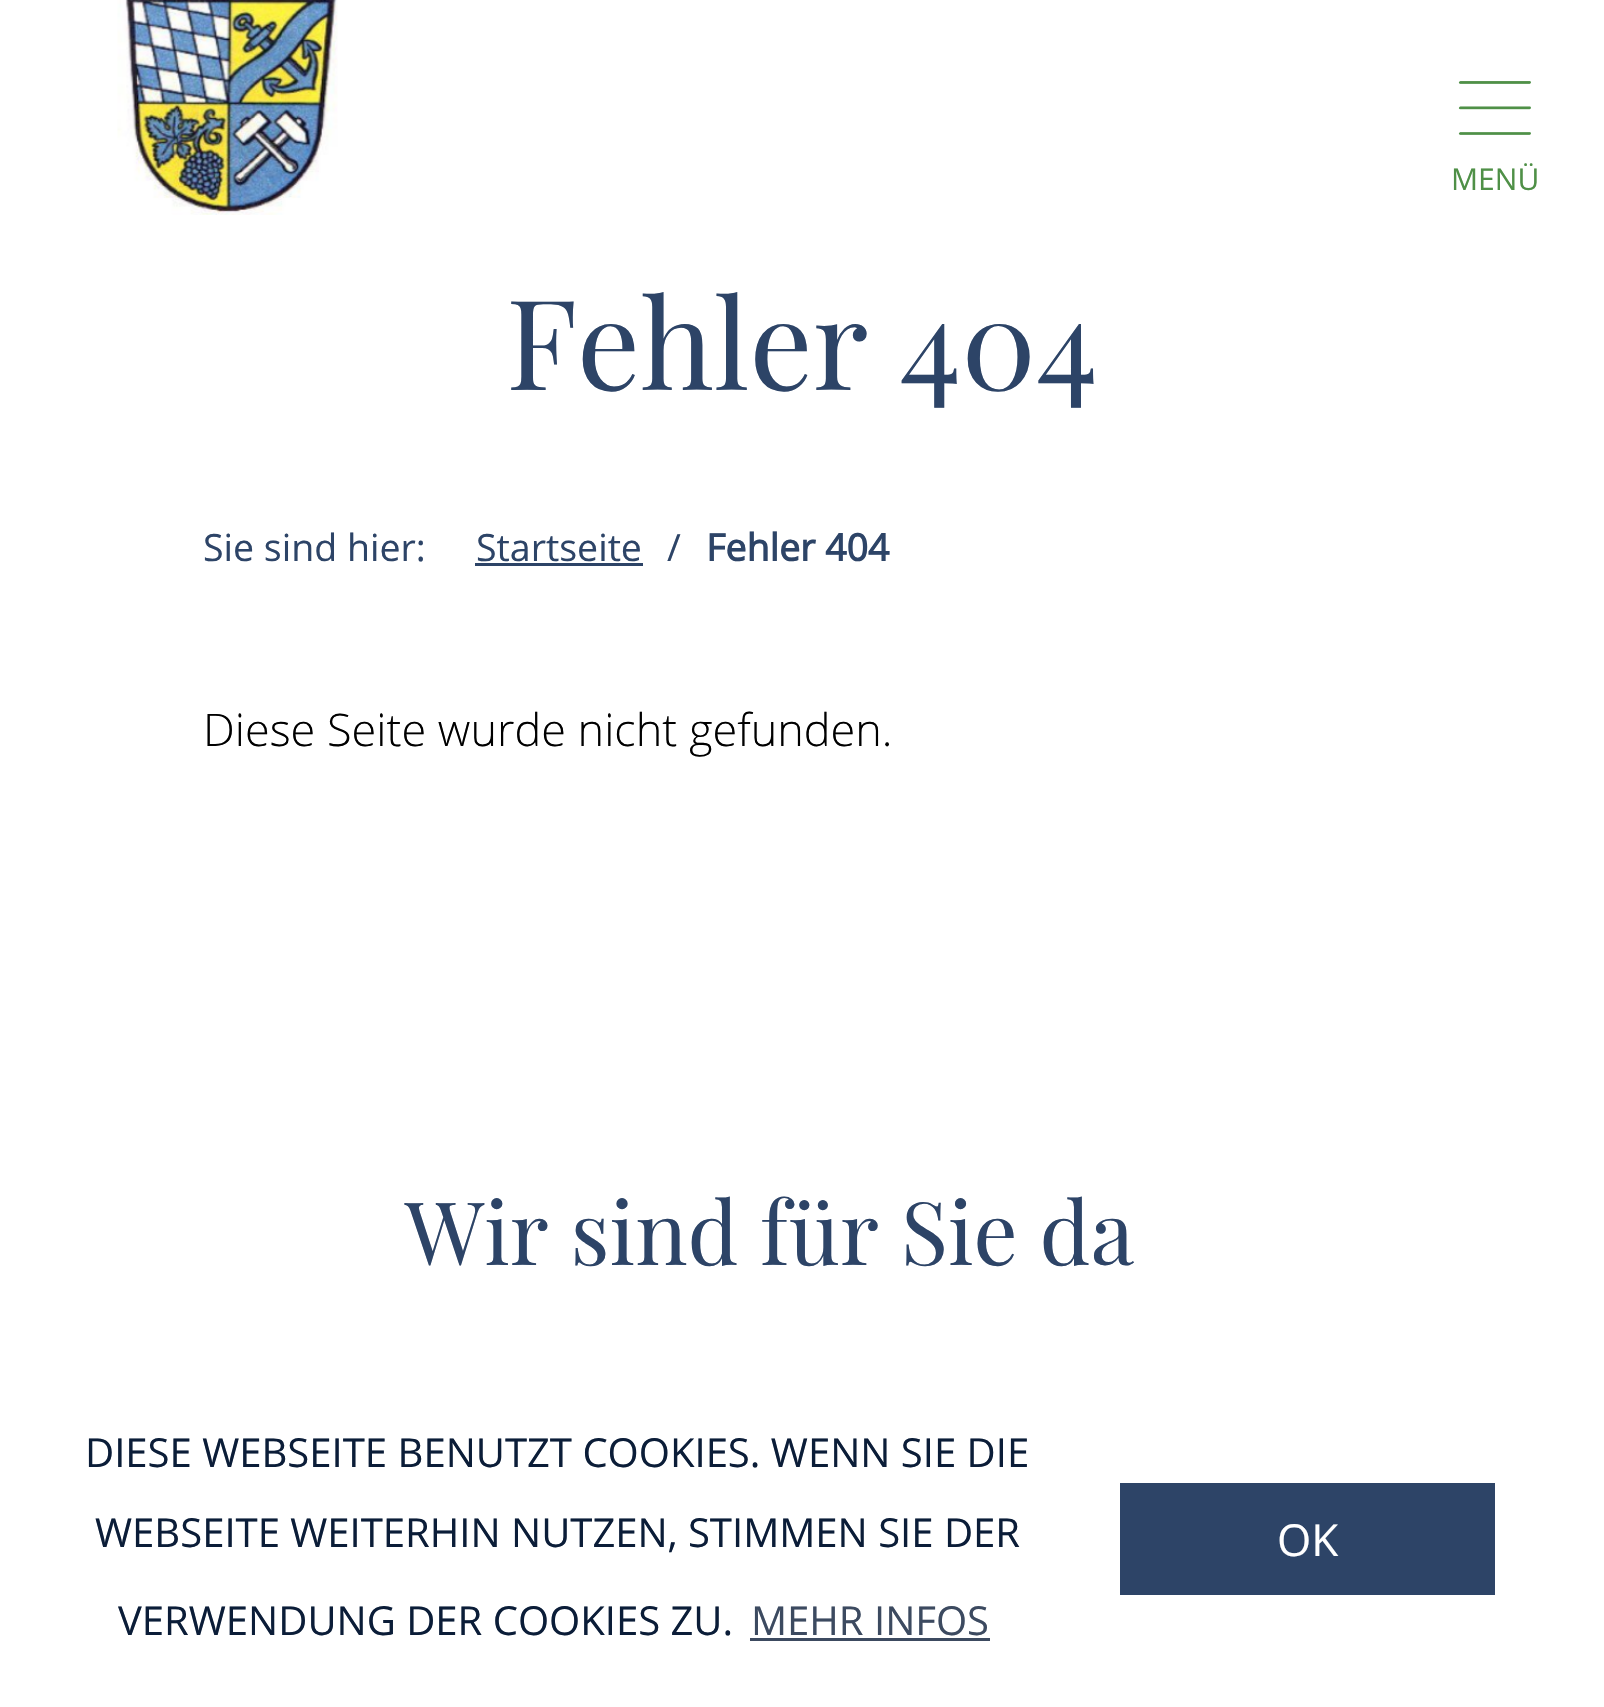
void draw(SkCanvas* canvas) {
    SkPaint paint;
    paint.setAntiAlias(true);
    auto face = [&](const char* family, int weight, float size, bool italic = false) {
        SkFontStyle style(weight, SkFontStyle::kNormal_Width,
            italic ? SkFontStyle::kItalic_Slant : SkFontStyle::kUpright_Slant);
        SkFont result(fontMgr->matchFamilyStyle(family, style), size);
        result.setSubpixel(true);
        return result;
    };
    auto write = [&](const char* s, float x, float y, const SkFont& font, SkColor color) {
        SkPaint ink(SkColor4f::FromColor(color));
        ink.setAntiAlias(true);
        canvas->drawString(s, x, y, font, ink);
    };
    auto block = [&](float x, float y, float w, float h, SkColor color) {
        SkPaint ink(SkColor4f::FromColor(color));
        ink.setAntiAlias(true);
        canvas->drawRect(SkRect::MakeXYWH(x, y, w, h), ink);
    };
    auto paste = [&](const char* path, float x, float y, float w, float h) {
        auto image = SkImages::DeferredFromEncodedData(SkData::MakeFromFileName(path));
        canvas->drawImageRect(image, SkRect::MakeXYWH(x, y, w, h), SkSamplingOptions());
    };
    canvas->clear(SK_ColorWHITE);
    paste("pic1.png", 117, 0, 221, 215);
    paste("pic2.png", 1458, 81, 73, 54);
    auto kFont1 = face("Open Sans", 400, 30);
    write("MENÜ", 1451, 190, kFont1, SkColorSetRGB(79, 144, 71));
    auto kFont2 = face("Playfair Display", 400, 125);
    write("Fehler 404", 506, 390, kFont2, SkColorSetRGB(45, 68, 103));
    auto kFont3 = face("Open Sans", 400, 37.5f);
    write("Sie sind hier:", 203, 561, kFont3, SkColorSetRGB(45, 68, 103));
    write("Startseite", 476, 561, kFont3, SkColorSetRGB(45, 68, 103));
    block(475, 563, 168, 3, SkColorSetRGB(45, 68, 103));
    write("/", 667, 561, kFont3, SkColorSetRGB(45, 68, 103));
    auto kFont4 = face("Open Sans", 700, 37.5f);
    write("Fehler 404", 706, 561, kFont4, SkColorSetRGB(45, 68, 103));
    auto kFont5 = face("Open Sans", 300, 45);
    write("Diese Seite wurde nicht gefunden.", 203, 746, kFont5, SK_ColorBLACK);
    auto kFont6 = face("Playfair Display", 400, 87.5f);
    write("Wir sind für Sie da", 405, 1265, kFont6, SkColorSetRGB(45, 68, 103));
    auto kFont7 = face("Open Sans", 400, 40);
    write("DIESE WEBSEITE BENUTZT COOKIES. WENN SIE DIE", 85, 1467, kFont7, SkColorSetRGB(11, 29, 56));
    write("WEBSEITE WEITERHIN NUTZEN, STIMMEN SIE DER", 95, 1547, kFont7, SkColorSetRGB(11, 29, 56));
    write("VERWENDUNG DER COOKIES ZU.", 118, 1635, kFont7, SkColorSetRGB(11, 29, 56));
    write("MEHR INFOS", 751, 1635, kFont7, SkColorSetRGB(60, 74, 96));
    block(750, 1638, 240, 3, SkColorSetRGB(60, 74, 96));
    block(1120, 1483, 375, 112, SkColorSetRGB(45, 68, 103));
    auto kFont8 = face("Open Sans", 400, 44);
    write("OK", 1277, 1556, kFont8, SK_ColorWHITE);
}
